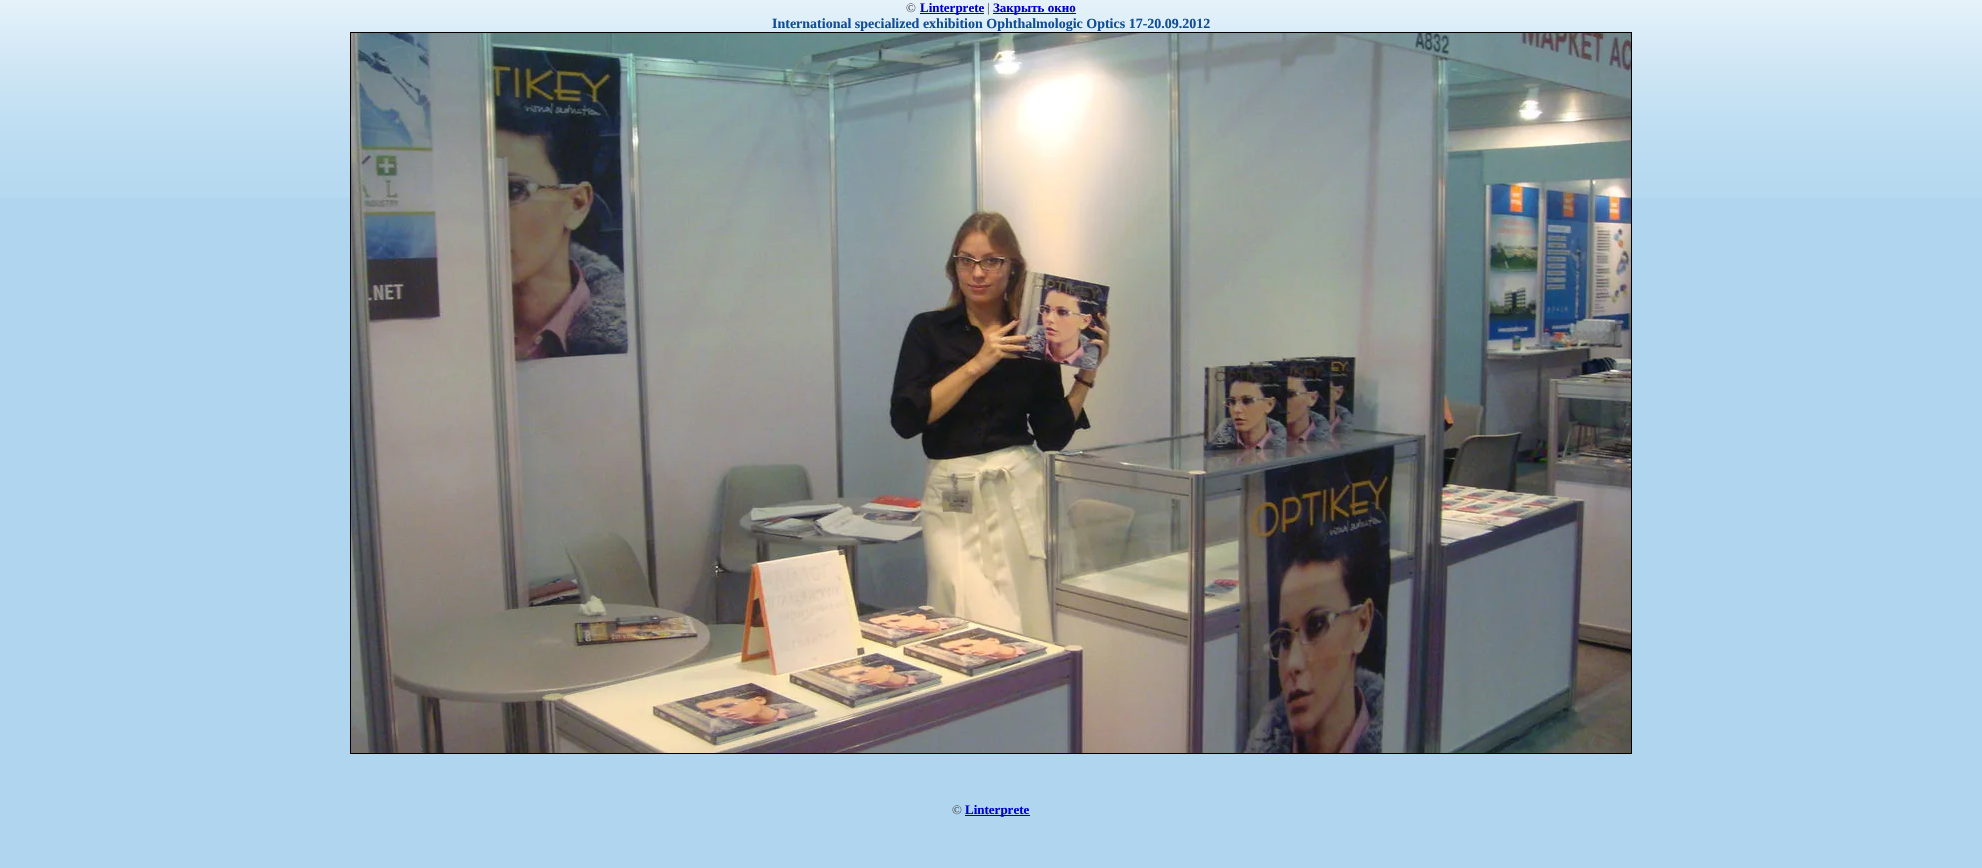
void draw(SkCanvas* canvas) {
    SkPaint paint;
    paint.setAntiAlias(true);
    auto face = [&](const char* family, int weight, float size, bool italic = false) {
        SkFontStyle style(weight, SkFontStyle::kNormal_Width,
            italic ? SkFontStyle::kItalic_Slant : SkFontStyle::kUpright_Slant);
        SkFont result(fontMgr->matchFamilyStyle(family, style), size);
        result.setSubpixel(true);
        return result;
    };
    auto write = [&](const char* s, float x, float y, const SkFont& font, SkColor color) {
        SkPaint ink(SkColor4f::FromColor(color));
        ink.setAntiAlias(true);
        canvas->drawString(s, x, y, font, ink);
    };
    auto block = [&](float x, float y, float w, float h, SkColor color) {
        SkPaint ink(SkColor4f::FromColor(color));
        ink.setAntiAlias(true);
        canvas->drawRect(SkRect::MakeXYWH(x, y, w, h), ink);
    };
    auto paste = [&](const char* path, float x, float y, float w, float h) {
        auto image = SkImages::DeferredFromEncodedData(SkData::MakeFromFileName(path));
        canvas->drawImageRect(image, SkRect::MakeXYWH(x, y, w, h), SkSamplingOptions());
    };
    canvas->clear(SkColorSetRGB(176, 214, 239));
    paste("pic1.png", 0, 0, 1982, 198);
    auto kFont1 = face("Liberation Serif", 400, 13);
    write("©", 906, 12, kFont1, SkColorSetRGB(83, 83, 83));
    block(920, 13, 64, 1, SkColorSetRGB(0, 0, 204));
    auto kFont2 = face("Liberation Serif", 700, 13);
    write("Linterprete", 920, 12, kFont2, SkColorSetRGB(0, 0, 204));
    write("|", 987, 12, kFont1, SkColorSetRGB(83, 83, 83));
    block(993, 13, 83, 1, SkColorSetRGB(0, 0, 204));
    write("Закрыть окно", 993, 12, kFont2, SkColorSetRGB(0, 0, 204));
    auto kFont3 = face("Liberation Serif", 700, 14);
    write("International specialized exhibition Ophthalmologic Optics 17-20.09.2012", 772, 28, kFont3, SkColorSetRGB(17, 78, 148));
    paint.setStyle(SkPaint::kStroke_Style);
    paint.setStrokeWidth(1);
    paint.setColor(SK_ColorBLACK);
    canvas->drawRect(SkRect::MakeXYWH(350.5f, 32.5f, 1281, 721), paint);
    paste("pic2.png", 351, 33, 1280, 720);
    write("©", 952, 814, kFont1, SkColorSetRGB(83, 83, 83));
    block(965, 815, 65, 1, SkColorSetRGB(0, 0, 204));
    write("Linterprete", 965, 814, kFont2, SkColorSetRGB(0, 0, 204));
}
